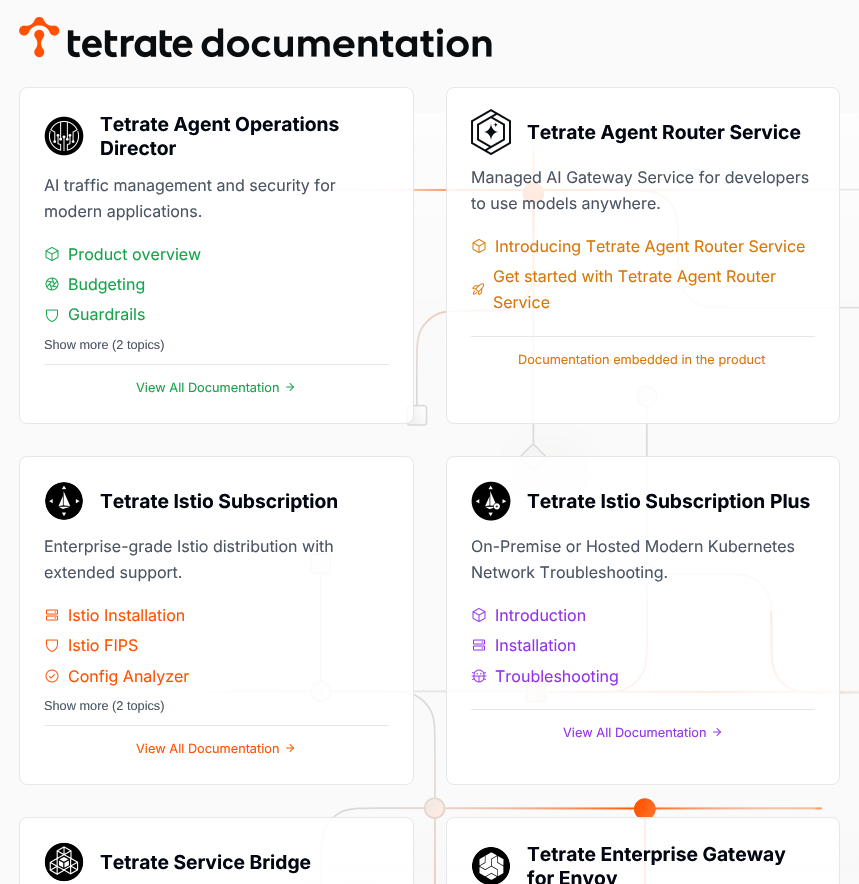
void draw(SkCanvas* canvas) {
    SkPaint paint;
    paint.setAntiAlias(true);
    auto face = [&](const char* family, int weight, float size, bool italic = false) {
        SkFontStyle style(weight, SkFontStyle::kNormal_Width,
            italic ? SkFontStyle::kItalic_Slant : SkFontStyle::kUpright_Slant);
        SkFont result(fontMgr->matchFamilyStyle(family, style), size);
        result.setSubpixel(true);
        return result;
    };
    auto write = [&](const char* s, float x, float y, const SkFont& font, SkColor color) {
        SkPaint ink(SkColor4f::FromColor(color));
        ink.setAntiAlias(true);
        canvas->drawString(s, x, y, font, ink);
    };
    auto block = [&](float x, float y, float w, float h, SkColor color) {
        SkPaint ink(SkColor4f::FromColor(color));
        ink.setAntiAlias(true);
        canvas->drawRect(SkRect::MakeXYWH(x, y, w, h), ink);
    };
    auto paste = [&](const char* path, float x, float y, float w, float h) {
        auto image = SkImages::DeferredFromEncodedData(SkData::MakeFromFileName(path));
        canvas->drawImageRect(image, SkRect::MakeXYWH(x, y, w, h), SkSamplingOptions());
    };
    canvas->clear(SkColorSetRGB(250, 250, 250));
    paste("pic1.png", 197, 113, 662, 771);
    paste("pic2.png", 19, 16, 473, 42);
    paint.setColor(SkColorSetARGB(222, 255, 255, 255));
    canvas->drawRoundRect(SkRect::MakeXYWH(19.5f, 87.5f, 394, 336), 7.5f, 7.5f, paint);
    paint.setStyle(SkPaint::kStroke_Style);
    paint.setStrokeWidth(1);
    paint.setColor(SkColorSetRGB(229, 231, 235));
    canvas->drawRoundRect(SkRect::MakeXYWH(19.5f, 87.5f, 394, 336), 7.5f, 7.5f, paint);
    paste("pic3.png", 44, 116, 40, 40);
    auto kFont1 = face("Inter", 700, 19.25f);
    write("Tetrate Agent Operations", 100, 131, kFont1, SkColorSetRGB(3, 7, 18));
    write("Director", 100, 155, kFont1, SkColorSetRGB(3, 7, 18));
    auto kFont2 = face("Inter", 400, 16);
    write("AI traffic management and security for", 44, 191, kFont2, SkColorSetRGB(75, 85, 99));
    write("modern applications.", 44, 217, kFont2, SkColorSetRGB(75, 85, 99));
    paste("pic4.png", 45, 247, 14, 14);
    write("Product overview", 68, 260, kFont2, SkColorSetRGB(22, 163, 74));
    paste("pic5.png", 45, 277, 14, 14);
    write("Budgeting", 68, 290, kFont2, SkColorSetRGB(22, 163, 74));
    paste("pic6.png", 46, 309, 12, 13);
    write("Guardrails", 68, 320, kFont2, SkColorSetRGB(22, 163, 74));
    auto kFont3 = face("Liberation Sans", 400, 12.75f);
    write("Show more (2 topics)", 44, 349, kFont3, SkColorSetRGB(75, 85, 99));
    block(44, 364, 345, 1, SkColorSetRGB(229, 231, 235));
    auto kFont4 = face("Inter", 400, 12.75f);
    write("View All Documentation", 136, 392, kFont4, SkColorSetRGB(22, 163, 74));
    paste("pic7.png", 286, 383, 8, 8);
    paint.setStyle(SkPaint::kFill_Style);
    paint.setColor(SkColorSetARGB(222, 255, 255, 255));
    canvas->drawRoundRect(SkRect::MakeXYWH(446.5f, 87.5f, 393, 336), 7.5f, 7.5f, paint);
    paint.setStyle(SkPaint::kStroke_Style);
    paint.setColor(SkColorSetRGB(229, 231, 235));
    canvas->drawRoundRect(SkRect::MakeXYWH(446.5f, 87.5f, 393, 336), 7.5f, 7.5f, paint);
    paste("pic8.png", 471, 109, 40, 46);
    write("Tetrate Agent Router Service", 527, 139, kFont1, SkColorSetRGB(3, 7, 18));
    write("Managed AI Gateway Service for developers", 471, 183, kFont2, SkColorSetRGB(75, 85, 99));
    write("to use models anywhere.", 471, 209, kFont2, SkColorSetRGB(75, 85, 99));
    paste("pic9.png", 472, 239, 14, 14);
    write("Introducing Tetrate Agent Router Service", 495, 252, kFont2, SkColorSetRGB(217, 119, 6));
    write("Get started with Tetrate Agent Router", 493, 282, kFont2, SkColorSetRGB(217, 119, 6));
    paste("pic10.png", 472, 283, 13, 12);
    write("Service", 493, 308, kFont2, SkColorSetRGB(217, 119, 6));
    block(471, 336, 344, 1, SkColorSetRGB(229, 231, 235));
    write("Documentation embedded in the product", 518, 364, kFont4, SkColorSetRGB(217, 119, 6));
    paint.setStyle(SkPaint::kFill_Style);
    paint.setColor(SkColorSetARGB(222, 255, 255, 255));
    canvas->drawRoundRect(SkRect::MakeXYWH(19.5f, 456.5f, 394, 328), 7.5f, 7.5f, paint);
    paint.setStyle(SkPaint::kStroke_Style);
    paint.setColor(SkColorSetRGB(229, 231, 235));
    canvas->drawRoundRect(SkRect::MakeXYWH(19.5f, 456.5f, 394, 328), 7.5f, 7.5f, paint);
    paste("pic11.png", 45, 482, 38, 38);
    write("Tetrate Istio Subscription", 100, 508, kFont1, SkColorSetRGB(3, 7, 18));
    write("Enterprise-grade Istio distribution with", 44, 552, kFont2, SkColorSetRGB(75, 85, 99));
    write("extended support.", 44, 578, kFont2, SkColorSetRGB(75, 85, 99));
    paste("pic12.png", 46, 609, 12, 12);
    write("Istio Installation", 68, 621, kFont2, SkColorSetRGB(255, 81, 0));
    paste("pic13.png", 46, 639, 12, 13);
    write("Istio FIPS", 68, 651, kFont2, SkColorSetRGB(255, 81, 0));
    paste("pic14.png", 45, 669, 14, 14);
    write("Config Analyzer", 68, 682, kFont2, SkColorSetRGB(255, 81, 0));
    write("Show more (2 topics)", 44, 710, kFont3, SkColorSetRGB(75, 85, 99));
    block(44, 725, 345, 1, SkColorSetRGB(229, 231, 235));
    write("View All Documentation", 136, 753, kFont4, SkColorSetRGB(255, 81, 0));
    paste("pic15.png", 286, 744, 8, 8);
    paint.setStyle(SkPaint::kFill_Style);
    paint.setColor(SkColorSetARGB(222, 255, 255, 255));
    canvas->drawRoundRect(SkRect::MakeXYWH(446.5f, 456.5f, 393, 328), 7.5f, 7.5f, paint);
    paint.setStyle(SkPaint::kStroke_Style);
    paint.setColor(SkColorSetRGB(229, 231, 235));
    canvas->drawRoundRect(SkRect::MakeXYWH(446.5f, 456.5f, 393, 328), 7.5f, 7.5f, paint);
    paste("pic16.png", 471, 481, 40, 40);
    write("Tetrate Istio Subscription Plus", 527, 508, kFont1, SkColorSetRGB(3, 7, 18));
    write("On-Premise or Hosted Modern Kubernetes", 471, 552, kFont2, SkColorSetRGB(75, 85, 99));
    write("Network Troubleshooting.", 471, 578, kFont2, SkColorSetRGB(75, 85, 99));
    paste("pic17.png", 472, 608, 14, 14);
    write("Introduction", 495, 621, kFont2, SkColorSetRGB(147, 51, 234));
    paste("pic18.png", 473, 639, 12, 12);
    write("Installation", 495, 651, kFont2, SkColorSetRGB(147, 51, 234));
    paste("pic19.png", 471, 669, 16, 14);
    write("Troubleshooting", 495, 682, kFont2, SkColorSetRGB(147, 51, 234));
    block(471, 709, 344, 1, SkColorSetRGB(229, 231, 235));
    write("View All Documentation", 563, 737, kFont4, SkColorSetRGB(147, 51, 234));
    paste("pic20.png", 713, 728, 8, 8);
    paint.setStyle(SkPaint::kFill_Style);
    paint.setColor(SkColorSetARGB(222, 255, 255, 255));
    canvas->drawRoundRect(SkRect::MakeXYWH(19.5f, 817.5f, 394, 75), 7.5f, 7.5f, paint);
    paint.setStyle(SkPaint::kStroke_Style);
    paint.setColor(SkColorSetRGB(229, 231, 235));
    canvas->drawRoundRect(SkRect::MakeXYWH(19.5f, 817.5f, 394, 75), 7.5f, 7.5f, paint);
    paste("pic21.png", 44, 842, 40, 40);
    write("Tetrate Service Bridge", 100, 869, kFont1, SkColorSetRGB(3, 7, 18));
    paint.setStyle(SkPaint::kFill_Style);
    paint.setColor(SkColorSetARGB(222, 255, 255, 255));
    canvas->drawRoundRect(SkRect::MakeXYWH(446.5f, 817.5f, 393, 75), 7.5f, 7.5f, paint);
    paint.setStyle(SkPaint::kStroke_Style);
    paint.setColor(SkColorSetRGB(229, 231, 235));
    canvas->drawRoundRect(SkRect::MakeXYWH(446.5f, 817.5f, 393, 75), 7.5f, 7.5f, paint);
    paste("pic22.png", 472, 847, 38, 37);
    write("Tetrate Enterprise Gateway", 527, 861, kFont1, SkColorSetRGB(3, 7, 18));
    write("for Envoy", 527, 885, kFont1, SkColorSetRGB(3, 7, 18));
}
